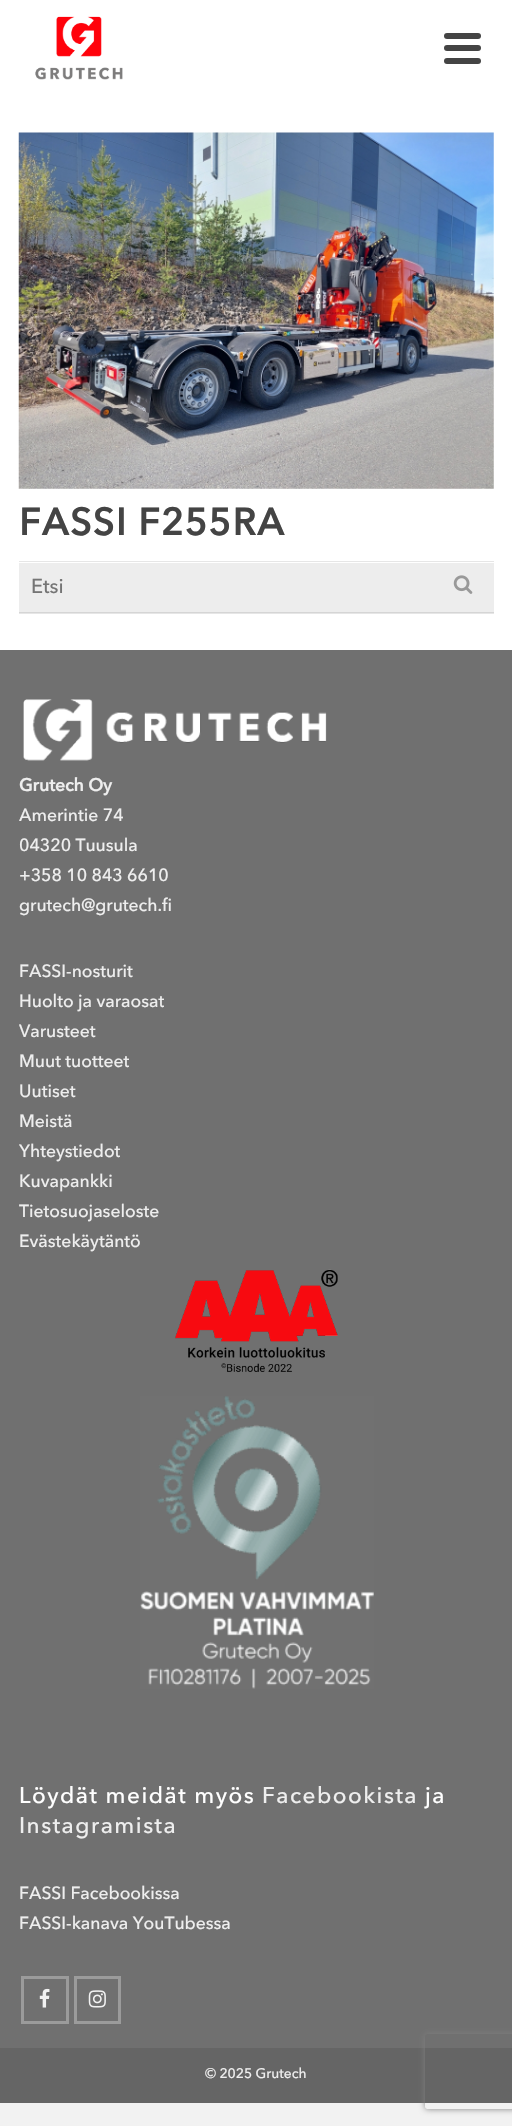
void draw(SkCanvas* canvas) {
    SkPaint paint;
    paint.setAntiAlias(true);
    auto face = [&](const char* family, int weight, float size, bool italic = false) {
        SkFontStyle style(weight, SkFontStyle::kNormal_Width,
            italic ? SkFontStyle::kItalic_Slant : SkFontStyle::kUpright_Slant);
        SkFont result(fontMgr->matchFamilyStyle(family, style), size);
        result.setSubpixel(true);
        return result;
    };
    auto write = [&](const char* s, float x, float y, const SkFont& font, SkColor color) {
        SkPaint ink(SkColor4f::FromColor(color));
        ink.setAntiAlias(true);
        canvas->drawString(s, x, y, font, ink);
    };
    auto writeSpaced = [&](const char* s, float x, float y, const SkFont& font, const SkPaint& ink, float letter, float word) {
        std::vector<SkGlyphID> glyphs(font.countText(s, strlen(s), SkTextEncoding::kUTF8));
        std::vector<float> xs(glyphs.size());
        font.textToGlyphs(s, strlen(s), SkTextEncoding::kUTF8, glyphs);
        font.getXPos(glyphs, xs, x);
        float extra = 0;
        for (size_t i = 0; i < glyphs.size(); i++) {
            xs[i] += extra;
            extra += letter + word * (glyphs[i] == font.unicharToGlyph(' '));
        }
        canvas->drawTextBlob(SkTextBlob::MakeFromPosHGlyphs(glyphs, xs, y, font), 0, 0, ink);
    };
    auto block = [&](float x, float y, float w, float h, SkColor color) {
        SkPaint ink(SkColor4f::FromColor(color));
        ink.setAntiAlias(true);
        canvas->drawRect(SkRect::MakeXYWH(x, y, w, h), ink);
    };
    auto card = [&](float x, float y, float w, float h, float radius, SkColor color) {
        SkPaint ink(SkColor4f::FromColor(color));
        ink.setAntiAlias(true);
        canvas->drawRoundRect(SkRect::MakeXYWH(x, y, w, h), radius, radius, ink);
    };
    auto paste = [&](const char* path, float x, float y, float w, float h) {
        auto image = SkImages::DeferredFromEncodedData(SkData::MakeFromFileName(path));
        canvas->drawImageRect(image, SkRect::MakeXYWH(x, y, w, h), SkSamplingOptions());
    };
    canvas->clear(SkColorSetRGB(242, 242, 242));
    block(0, 0, 512, 650, SK_ColorWHITE);
    paste("pic1.png", 35, 16, 88, 64);
    card(444, 33, 37, 6, 3, SkColorSetRGB(68, 68, 68));
    card(444, 45, 37, 6, 3, SkColorSetRGB(68, 68, 68));
    card(444, 58, 37, 6, 3, SkColorSetRGB(68, 68, 68));
    paste("pic2.png", 18, 132, 476, 357);
    auto kFont1 = face("Avenir Next", 700, 37.5f);
    paint.setColor(SkColorSetRGB(68, 68, 68));
    writeSpaced("FASSI F255RA", 19, 535, kFont1, paint, 1.5f, 0);
    block(19, 561, 475, 1, SkColorSetRGB(230, 230, 230));
    paint.setColor(SkColorSetRGB(230, 230, 230));
    canvas->drawPath(SkPathBuilder().moveTo(19, 612).lineTo(19, 614).lineTo(494, 614).lineTo(494, 564).lineTo(494, 612).close().detach(), paint);
    block(19, 563, 475, 50, SkColorSetARGB(18, 0, 0, 0));
    auto kFont2 = face("Avenir Next", 500, 20);
    write("Etsi", 31, 593, kFont2, SkColorSetRGB(117, 117, 117));
    paste("pic3.png", 453, 575, 20, 19);
    block(0, 650, 512, 1398, SkColorSetRGB(112, 112, 112));
    paste("pic4.png", 23, 699, 304, 62);
    auto kFont3 = face("Avenir Next", 700, 17.5f);
    write("Grutech Oy", 19, 791, kFont3, SkColorSetRGB(238, 238, 238));
    auto kFont4 = face("Avenir Next", 500, 17.5f);
    write("Amerintie 74", 19, 821, kFont4, SkColorSetRGB(238, 238, 238));
    write("04320 Tuusula", 19, 851, kFont4, SkColorSetRGB(238, 238, 238));
    write("+358 10 843 6610", 19, 881, kFont4, SkColorSetRGB(238, 238, 238));
    write("grutech@grutech.fi", 19, 911, kFont4, SkColorSetRGB(238, 238, 238));
    write("FASSI-nosturit", 19, 977, kFont4, SkColorSetRGB(238, 238, 238));
    write("Huolto ja varaosat", 19, 1007, kFont4, SkColorSetRGB(238, 238, 238));
    write("Varusteet", 19, 1037, kFont4, SkColorSetRGB(238, 238, 238));
    write("Muut tuotteet", 19, 1067, kFont4, SkColorSetRGB(238, 238, 238));
    write("Uutiset", 19, 1097, kFont4, SkColorSetRGB(238, 238, 238));
    write("Meistä", 19, 1127, kFont4, SkColorSetRGB(238, 238, 238));
    write("Yhteystiedot", 19, 1157, kFont4, SkColorSetRGB(238, 238, 238));
    write("Kuvapankki", 19, 1187, kFont4, SkColorSetRGB(238, 238, 238));
    write("Tietosuojaseloste", 19, 1217, kFont4, SkColorSetRGB(238, 238, 238));
    write("Evästekäytäntö", 19, 1247, kFont4, SkColorSetRGB(238, 238, 238));
    paste("pic5.png", 175, 1269, 163, 103);
    paste("pic6.png", 140, 1396, 234, 293);
    auto kFont5 = face("Avenir Next", 500, 22.5f);
    paint.setColor(SK_ColorWHITE);
    writeSpaced("Löydät meidät myös", 19, 1803, kFont5, paint, 1.5f, 0);
    paint.setColor(SkColorSetRGB(238, 238, 238));
    writeSpaced("Facebookista", 262, 1803, kFont5, paint, 1.5f, 0);
    paint.setColor(SK_ColorWHITE);
    writeSpaced("ja", 425, 1803, kFont5, paint, 1.5f, 0);
    paint.setColor(SkColorSetRGB(238, 238, 238));
    writeSpaced("Instagramista", 19, 1833, kFont5, paint, 1.5f, 0);
    write("FASSI Facebookissa", 19, 1899, kFont4, SkColorSetRGB(238, 238, 238));
    write("FASSI-kanava YouTubessa", 19, 1929, kFont4, SkColorSetRGB(238, 238, 238));
    paint.setStyle(SkPaint::kStroke_Style);
    paint.setStrokeWidth(3);
    paint.setColor(SkColorSetRGB(155, 155, 155));
    canvas->drawRect(SkRect::MakeXYWH(22.5f, 1977.5f, 45, 45), paint);
    paste("pic7.png", 39, 1988, 11, 20);
    canvas->drawRect(SkRect::MakeXYWH(75.5f, 1977.5f, 44, 45), paint);
    paste("pic8.png", 88, 1990, 18, 18);
    block(0, 2048, 512, 55, SkColorSetRGB(101, 101, 101));
    auto kFont6 = face("Avenir Next", 500, 13.75f);
    write("© 2025 Grutech", 205, 2078, kFont6, SkColorSetRGB(238, 238, 238));
    canvas->save();
    canvas->clipPath(SkPathBuilder(SkPathFillType::kEvenOdd).moveTo(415, 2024).lineTo(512, 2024).lineTo(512, 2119).lineTo(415, 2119).close().moveTo(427.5f, 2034).lineTo(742.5f, 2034).cubicTo(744, 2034, 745, 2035, 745, 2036.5f).lineTo(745, 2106.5f).cubicTo(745, 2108, 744, 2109, 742.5f, 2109).lineTo(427.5f, 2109).cubicTo(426, 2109, 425, 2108, 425, 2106.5f).lineTo(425, 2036.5f).cubicTo(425, 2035, 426, 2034, 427.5f, 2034).close().detach(), true);
    paint.setStyle(SkPaint::kFill_Style);
    paint.setColor(SkColorSetRGB(128, 128, 128));
    paint.setMaskFilter(SkMaskFilter::MakeBlur(kNormal_SkBlurStyle, 3));
    canvas->drawRoundRect(SkRect::MakeXYWH(425, 2034, 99, 75), 2.5f, 2.5f, paint);
    paint.setMaskFilter(nullptr);
    canvas->restore();
}
